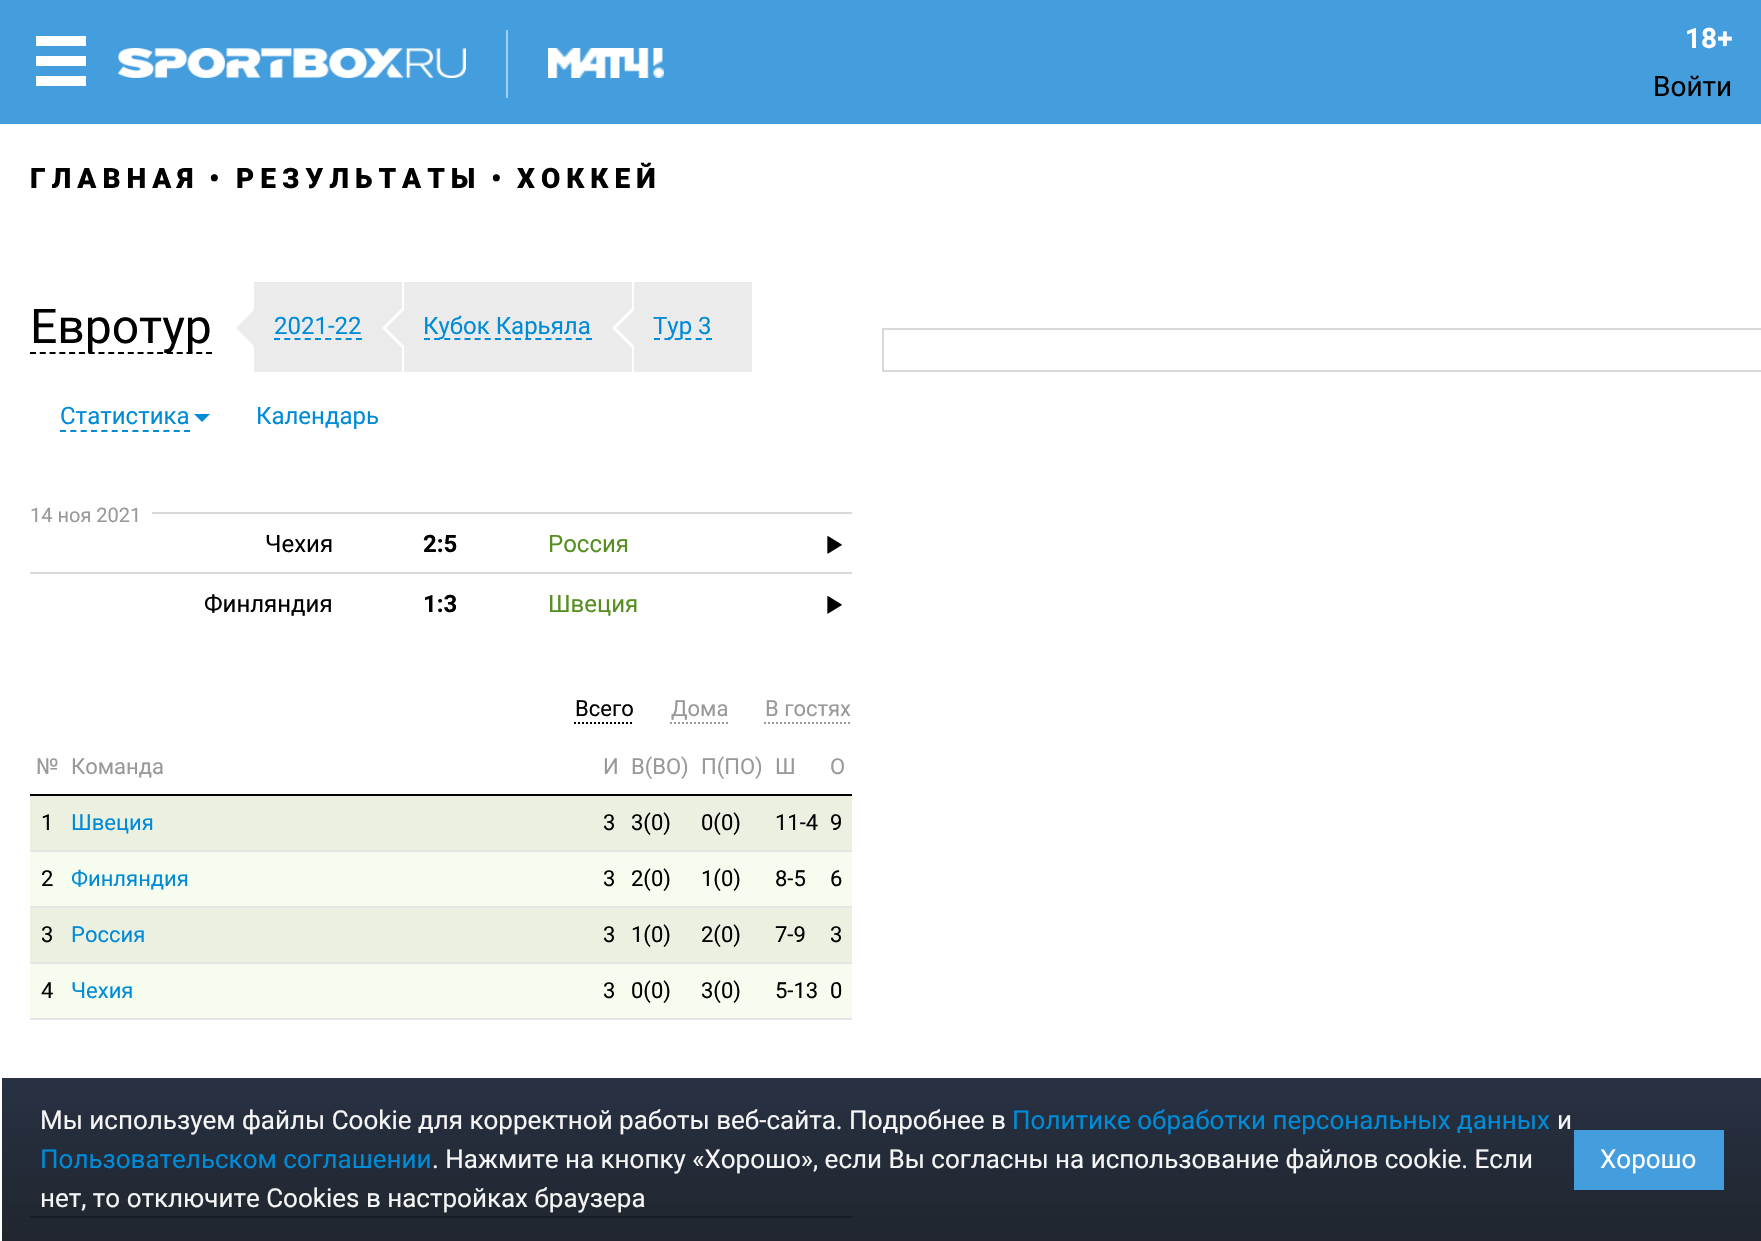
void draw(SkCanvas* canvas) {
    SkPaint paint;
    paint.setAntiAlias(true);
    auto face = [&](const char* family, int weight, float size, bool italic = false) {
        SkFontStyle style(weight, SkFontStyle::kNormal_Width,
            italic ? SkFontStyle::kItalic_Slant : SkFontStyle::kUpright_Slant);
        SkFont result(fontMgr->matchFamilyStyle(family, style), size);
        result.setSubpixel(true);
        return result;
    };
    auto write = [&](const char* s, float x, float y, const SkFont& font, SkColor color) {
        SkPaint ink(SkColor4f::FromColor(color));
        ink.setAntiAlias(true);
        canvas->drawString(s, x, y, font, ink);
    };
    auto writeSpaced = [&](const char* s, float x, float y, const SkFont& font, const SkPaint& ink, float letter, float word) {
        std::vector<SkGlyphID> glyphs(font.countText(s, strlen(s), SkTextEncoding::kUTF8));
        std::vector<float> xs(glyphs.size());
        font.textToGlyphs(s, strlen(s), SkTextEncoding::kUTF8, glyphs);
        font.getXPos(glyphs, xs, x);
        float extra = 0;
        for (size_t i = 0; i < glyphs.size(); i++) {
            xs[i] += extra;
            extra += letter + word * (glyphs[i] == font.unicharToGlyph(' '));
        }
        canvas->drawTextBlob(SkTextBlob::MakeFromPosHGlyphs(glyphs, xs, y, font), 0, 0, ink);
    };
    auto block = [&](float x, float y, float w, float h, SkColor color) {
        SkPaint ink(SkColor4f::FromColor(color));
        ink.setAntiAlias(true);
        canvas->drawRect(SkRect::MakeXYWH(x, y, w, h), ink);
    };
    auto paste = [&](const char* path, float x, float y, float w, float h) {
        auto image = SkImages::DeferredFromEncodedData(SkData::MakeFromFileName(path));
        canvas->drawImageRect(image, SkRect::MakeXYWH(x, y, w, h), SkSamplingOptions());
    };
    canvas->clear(SkColorSetRGB(68, 157, 221));
    block(36, 36, 50, 10, SK_ColorWHITE);
    block(36, 76, 50, 10, SK_ColorWHITE);
    block(36, 56, 50, 10, SK_ColorWHITE);
    paste("pic1.png", 118, 48, 348, 30);
    block(506, 30, 2, 68, SkColorSetRGB(162, 206, 238));
    paste("pic2.png", 548, 48, 116, 30);
    auto kFont1 = face("Roboto", 700, 28);
    write("18+", 1685, 48, kFont1, SK_ColorWHITE);
    auto kFont2 = face("Roboto", 400, 28);
    write("Войти", 1653, 96, kFont2, SK_ColorBLACK);
    block(0, 124, 1761, 1117, SK_ColorWHITE);
    auto kFont3 = face("Roboto", 900, 28);
    paint.setColor(SK_ColorBLACK);
    writeSpaced("ГЛАВНАЯ", 30, 188, kFont3, paint, 6, 0);
    write("•", 209, 188, kFont3, SK_ColorBLACK);
    writeSpaced("РЕЗУЛЬТАТЫ", 236, 188, kFont3, paint, 6, 0);
    write("•", 491, 188, kFont3, SK_ColorBLACK);
    writeSpaced("ХОККЕЙ", 517, 188, kFont3, paint, 6, 0);
    paint.setStyle(SkPaint::kStroke_Style);
    paint.setStrokeWidth(2);
    paint.setPathEffect(SkDashPathEffect::Make({{6, 3.78f}}, 0));
    canvas->drawPath(SkPathBuilder().moveTo(30, 353).lineTo(212, 353).detach(), paint);
    paint.setPathEffect(nullptr);
    auto kFont4 = face("Roboto", 400, 48);
    write("Евротур", 30, 343, kFont4, SK_ColorBLACK);
    paint.setStyle(SkPaint::kFill_Style);
    paint.setColor(SkColorSetRGB(235, 235, 235));
    canvas->drawPath(SkPathBuilder().moveTo(254, 310).lineTo(254, 346).lineTo(236, 328).close().detach(), paint);
    block(254, 282, 148, 90, SkColorSetRGB(235, 235, 235));
    paint.setStyle(SkPaint::kStroke_Style);
    paint.setColor(SkColorSetRGB(0, 139, 215));
    paint.setPathEffect(SkDashPathEffect::Make({{6, 4.24f}}, 0));
    canvas->drawPath(SkPathBuilder().moveTo(274, 339).lineTo(362, 339).detach(), paint);
    paint.setPathEffect(nullptr);
    auto kFont5 = face("Roboto", 400, 24);
    write("2021-22", 274, 334, kFont5, SkColorSetRGB(0, 139, 215));
    paint.setStyle(SkPaint::kFill_Style);
    paint.setColor(SK_ColorWHITE);
    canvas->drawPath(SkPathBuilder().moveTo(404, 306).lineTo(404, 350).lineTo(382, 328).close().detach(), paint);
    paint.setColor(SkColorSetRGB(235, 235, 235));
    canvas->drawPath(SkPathBuilder().moveTo(404, 310).lineTo(404, 346).lineTo(386, 328).close().detach(), paint);
    block(404, 282, 228, 90, SkColorSetRGB(235, 235, 235));
    paint.setStyle(SkPaint::kStroke_Style);
    paint.setColor(SkColorSetRGB(0, 139, 215));
    paint.setPathEffect(SkDashPathEffect::Make({{6, 4.12f}}, 0));
    canvas->drawPath(SkPathBuilder().moveTo(424, 339).lineTo(592, 339).detach(), paint);
    paint.setPathEffect(nullptr);
    write("Кубок Карьяла", 423, 334, kFont5, SkColorSetRGB(0, 139, 215));
    paint.setStyle(SkPaint::kFill_Style);
    paint.setColor(SK_ColorWHITE);
    canvas->drawPath(SkPathBuilder().moveTo(634, 306).lineTo(634, 350).lineTo(612, 328).close().detach(), paint);
    paint.setColor(SkColorSetRGB(235, 235, 235));
    canvas->drawPath(SkPathBuilder().moveTo(634, 310).lineTo(634, 346).lineTo(616, 328).close().detach(), paint);
    block(634, 282, 118, 90, SkColorSetRGB(235, 235, 235));
    paint.setStyle(SkPaint::kStroke_Style);
    paint.setColor(SkColorSetRGB(0, 139, 215));
    paint.setPathEffect(SkDashPathEffect::Make({{6, 4.4f}}, 0));
    canvas->drawPath(SkPathBuilder().moveTo(654, 339).lineTo(712, 339).detach(), paint);
    paint.setPathEffect(nullptr);
    write("Тур 3", 653, 334, kFont5, SkColorSetRGB(0, 139, 215));
    write("Статистика", 60, 424, kFont5, SkColorSetRGB(0, 139, 215));
    paint.setPathEffect(SkDashPathEffect::Make({{6, 4.34f}}, 0));
    canvas->drawPath(SkPathBuilder().moveTo(60, 431).lineTo(190, 431).detach(), paint);
    paint.setPathEffect(nullptr);
    paint.setStyle(SkPaint::kFill_Style);
    canvas->drawPath(SkPathBuilder().moveTo(194, 414).lineTo(210, 414).lineTo(202, 422).close().detach(), paint);
    write("Календарь", 256, 424, kFont5, SkColorSetRGB(0, 139, 215));
    auto kFont6 = face("Roboto", 400, 20);
    write("14 ноя 2021", 30, 522, kFont6, SkColorSetRGB(153, 153, 153));
    block(152, 512, 700, 2, SkColorSetRGB(217, 217, 217));
    write("Чехия", 265, 552, kFont5, SK_ColorBLACK);
    auto kFont7 = face("Roboto", 700, 24);
    write("2:5", 423, 552, kFont7, SK_ColorBLACK);
    write("Россия", 548, 552, kFont5, SkColorSetRGB(87, 142, 33));
    paste("pic3.png", 827, 536, 15, 18);
    block(30, 572, 822, 2, SkColorSetRGB(217, 217, 217));
    write("Финляндия", 204, 612, kFont5, SK_ColorBLACK);
    write("1:3", 423, 612, kFont7, SK_ColorBLACK);
    write("Швеция", 548, 612, kFont5, SkColorSetRGB(87, 142, 33));
    paste("pic3.png", 827, 596, 15, 18);
    auto kFont8 = face("Roboto", 400, 22);
    write("Всего", 575, 716, kFont8, SK_ColorBLACK);
    paint.setStyle(SkPaint::kStroke_Style);
    paint.setColor(SK_ColorBLACK);
    paint.setPathEffect(SkDashPathEffect::Make({{2, 2}}, 0));
    canvas->drawPath(SkPathBuilder().moveTo(574, 723).lineTo(634, 723).detach(), paint);
    paint.setPathEffect(nullptr);
    write("Дома", 671, 716, kFont8, SkColorSetRGB(153, 153, 153));
    paint.setColor(SkColorSetRGB(153, 153, 153));
    paint.setPathEffect(SkDashPathEffect::Make({{2, 2}}, 0));
    canvas->drawPath(SkPathBuilder().moveTo(670, 723).lineTo(728, 723).detach(), paint);
    paint.setPathEffect(nullptr);
    write("В гостях", 765, 716, kFont8, SkColorSetRGB(153, 153, 153));
    paint.setPathEffect(SkDashPathEffect::Make({{2, 2}}, 0));
    canvas->drawPath(SkPathBuilder().moveTo(764, 723).lineTo(852, 723).detach(), paint);
    paint.setPathEffect(nullptr);
    block(30, 794, 822, 2, SK_ColorBLACK);
    write("№", 36, 774, kFont8, SkColorSetRGB(153, 153, 153));
    write("Команда", 71, 774, kFont8, SkColorSetRGB(153, 153, 153));
    write("И", 603, 774, kFont8, SkColorSetRGB(153, 153, 153));
    write("В(ВО)", 631, 774, kFont8, SkColorSetRGB(153, 153, 153));
    write("П(ПО)", 701, 774, kFont8, SkColorSetRGB(153, 153, 153));
    write("Ш", 775, 774, kFont8, SkColorSetRGB(153, 153, 153));
    write("О", 830, 774, kFont8, SkColorSetRGB(153, 153, 153));
    block(30, 796, 822, 54, SkColorSetRGB(236, 240, 225));
    block(30, 850, 822, 2, SkColorSetRGB(229, 229, 229));
    write("1", 41, 830, kFont8, SK_ColorBLACK);
    write("Швеция", 71, 830, kFont8, SkColorSetRGB(0, 139, 215));
    write("3", 603, 830, kFont8, SK_ColorBLACK);
    write("3(0)", 631, 830, kFont8, SK_ColorBLACK);
    write("0(0)", 701, 830, kFont8, SK_ColorBLACK);
    write("11-4", 775, 830, kFont8, SK_ColorBLACK);
    write("9", 830, 830, kFont8, SK_ColorBLACK);
    block(30, 852, 822, 54, SkColorSetRGB(247, 253, 238));
    block(30, 906, 822, 2, SkColorSetRGB(229, 229, 229));
    write("2", 41, 886, kFont8, SK_ColorBLACK);
    write("Финляндия", 71, 886, kFont8, SkColorSetRGB(0, 139, 215));
    write("3", 603, 886, kFont8, SK_ColorBLACK);
    write("2(0)", 631, 886, kFont8, SK_ColorBLACK);
    write("1(0)", 701, 886, kFont8, SK_ColorBLACK);
    write("8-5", 775, 886, kFont8, SK_ColorBLACK);
    write("6", 830, 886, kFont8, SK_ColorBLACK);
    block(30, 908, 822, 54, SkColorSetRGB(236, 240, 225));
    block(30, 962, 822, 2, SkColorSetRGB(229, 229, 229));
    write("3", 41, 942, kFont8, SK_ColorBLACK);
    write("Россия", 71, 942, kFont8, SkColorSetRGB(0, 139, 215));
    write("3", 603, 942, kFont8, SK_ColorBLACK);
    write("1(0)", 631, 942, kFont8, SK_ColorBLACK);
    write("2(0)", 701, 942, kFont8, SK_ColorBLACK);
    write("7-9", 775, 942, kFont8, SK_ColorBLACK);
    write("3", 830, 942, kFont8, SK_ColorBLACK);
    block(30, 964, 822, 54, SkColorSetRGB(247, 253, 238));
    block(30, 1018, 822, 2, SkColorSetRGB(229, 229, 229));
    write("4", 41, 998, kFont8, SK_ColorBLACK);
    write("Чехия", 71, 998, kFont8, SkColorSetRGB(0, 139, 215));
    write("3", 603, 998, kFont8, SK_ColorBLACK);
    write("0(0)", 631, 998, kFont8, SK_ColorBLACK);
    write("3(0)", 701, 998, kFont8, SK_ColorBLACK);
    write("5-13", 775, 998, kFont8, SK_ColorBLACK);
    write("0", 830, 998, kFont8, SK_ColorBLACK);
    block(30, 1216, 822, 2, SK_ColorBLACK);
    block(882, 328, 879, 2, SkColorSetRGB(217, 217, 217));
    block(882, 370, 879, 2, SkColorSetRGB(217, 217, 217));
    block(882, 328, 2, 44, SkColorSetRGB(217, 217, 217));
    paint.setStyle(SkPaint::kFill_Style);
    {
        const SkColor colors[] = {SkColorSetRGB(40, 50, 68), SkColorSetARGB(242, 21, 26, 35)};
        const float stops[] = {0, 1};
        const SkPoint ends[] = {{882, 1078}, {882, 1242}};
        paint.setShader(SkGradientShader::MakeLinear(ends, colors, stops, 2, SkTileMode::kClamp));
        paint.setAlpha(255);
    }
    canvas->drawRect(SkRect::MakeXYWH(2, 1078, 1759, 163), paint);
    auto kFont9 = face("Roboto", 400, 26);
    write("Мы используем файлы Сookie для корректной работы веб-сайта. Подробнее в", 40, 1129, kFont9, SkColorSetRGB(245, 245, 245));
    write("Политике обработки персональных данных", 1012, 1129, kFont9, SkColorSetRGB(0, 139, 215));
    write("и", 1557, 1129, kFont9, SkColorSetRGB(245, 245, 245));
    write("Пользовательском соглашении", 40, 1168, kFont9, SkColorSetRGB(0, 139, 215));
    write(". Нажмите на кнопку «Хорошо», если Вы согласны на использование файлов cookie. Если", 432, 1168, kFont9, SkColorSetRGB(245, 245, 245));
    write("нет, то отключите Cookies в настройках браузера", 40, 1207, kFont9, SkColorSetRGB(245, 245, 245));
    block(1574, 1130, 150, 60, SkColorSetRGB(68, 157, 221));
    write("Хорошо", 1600, 1168, kFont9, SK_ColorWHITE);
}
